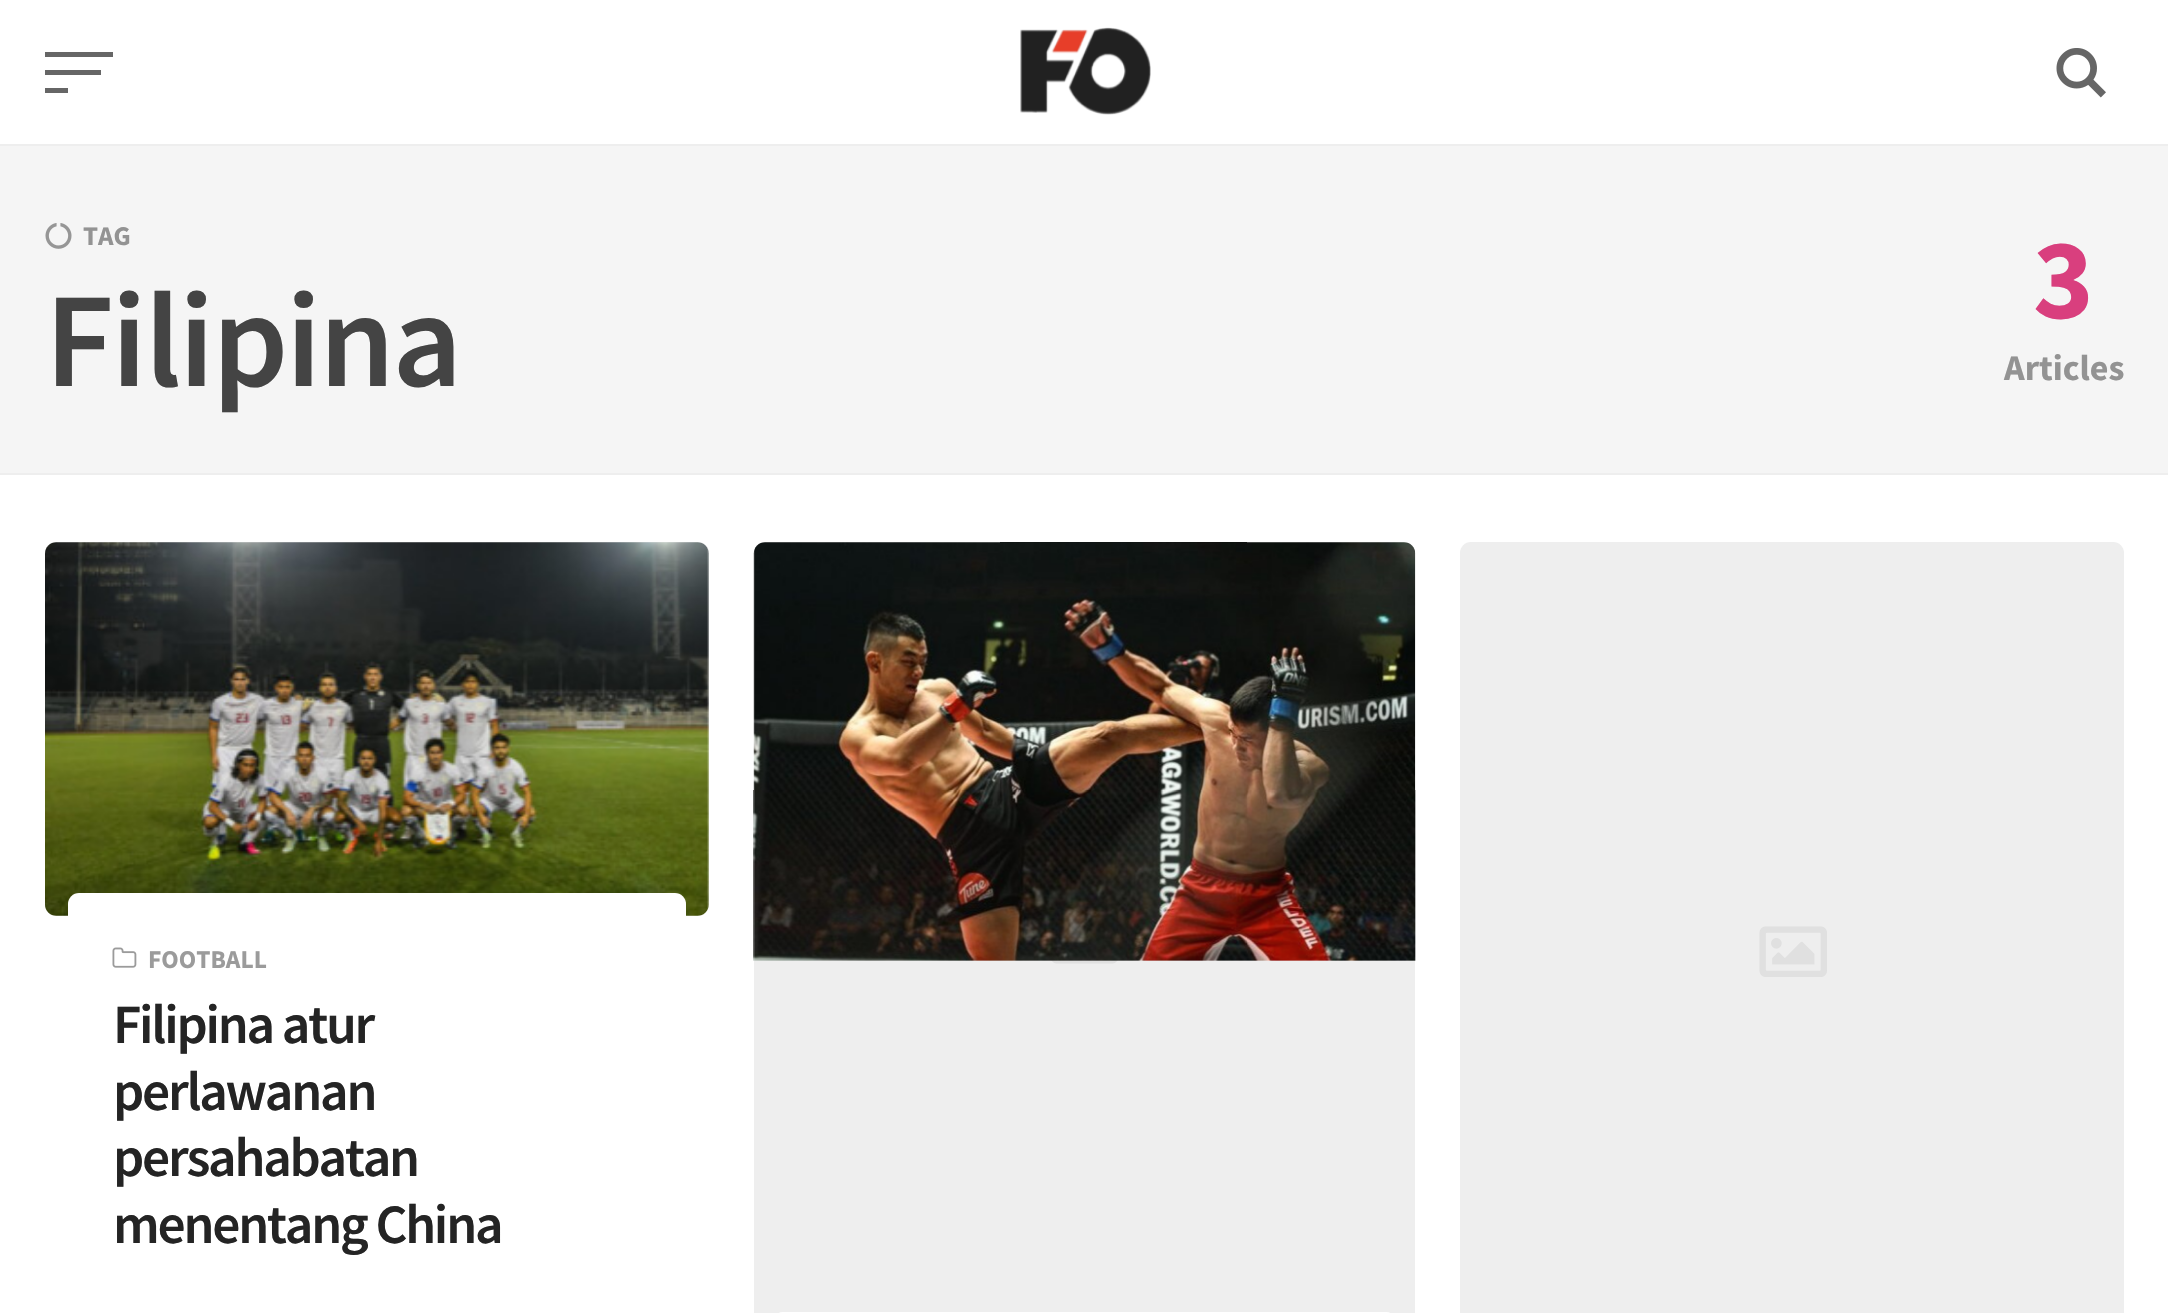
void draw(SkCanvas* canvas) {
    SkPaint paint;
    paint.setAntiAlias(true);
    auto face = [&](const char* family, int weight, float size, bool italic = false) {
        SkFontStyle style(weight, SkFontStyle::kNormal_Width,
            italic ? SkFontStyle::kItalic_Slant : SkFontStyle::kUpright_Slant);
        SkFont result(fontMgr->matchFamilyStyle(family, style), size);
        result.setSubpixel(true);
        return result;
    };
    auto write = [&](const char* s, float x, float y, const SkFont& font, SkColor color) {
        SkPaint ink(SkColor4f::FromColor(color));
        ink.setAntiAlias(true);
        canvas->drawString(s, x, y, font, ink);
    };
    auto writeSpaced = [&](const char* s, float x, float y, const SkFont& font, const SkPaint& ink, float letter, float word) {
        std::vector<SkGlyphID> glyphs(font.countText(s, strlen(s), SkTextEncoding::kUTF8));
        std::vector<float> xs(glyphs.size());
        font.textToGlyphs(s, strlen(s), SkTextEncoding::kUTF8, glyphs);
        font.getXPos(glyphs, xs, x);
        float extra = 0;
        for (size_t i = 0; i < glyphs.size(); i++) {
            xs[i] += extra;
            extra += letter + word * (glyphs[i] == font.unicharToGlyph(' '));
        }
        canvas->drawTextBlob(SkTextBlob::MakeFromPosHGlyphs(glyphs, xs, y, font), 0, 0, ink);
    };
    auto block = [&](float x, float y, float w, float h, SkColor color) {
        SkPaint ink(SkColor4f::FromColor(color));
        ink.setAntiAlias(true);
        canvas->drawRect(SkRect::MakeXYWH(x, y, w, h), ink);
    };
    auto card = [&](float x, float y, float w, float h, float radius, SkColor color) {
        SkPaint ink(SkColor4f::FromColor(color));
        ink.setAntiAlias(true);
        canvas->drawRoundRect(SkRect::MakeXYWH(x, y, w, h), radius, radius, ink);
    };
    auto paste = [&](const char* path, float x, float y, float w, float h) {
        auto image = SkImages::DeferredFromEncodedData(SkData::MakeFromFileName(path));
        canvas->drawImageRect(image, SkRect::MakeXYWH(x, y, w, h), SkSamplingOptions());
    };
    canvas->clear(SK_ColorWHITE);
    block(0, 144, 2168, 2, SkColorSetRGB(238, 238, 238));
    block(45, 52, 68, 5, SkColorSetRGB(102, 102, 102));
    block(45, 70, 56, 5, SkColorSetRGB(102, 102, 102));
    block(45, 88, 23, 5, SkColorSetRGB(102, 102, 102));
    paste("pic1.png", 1020, 27, 131, 88);
    paste("pic2.png", 2056, 48, 50, 50);
    block(0, 146, 2168, 327, SkColorSetRGB(245, 245, 245));
    block(0, 473, 2168, 2, SkColorSetRGB(238, 238, 238));
    paste("pic3.png", 45, 223, 27, 26);
    auto kFont1 = face("Source Sans Pro", 700, 27);
    write("TAG", 83, 245, kFont1, SkColorSetRGB(147, 147, 147));
    auto kFont2 = face("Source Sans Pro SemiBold", 600, 135);
    paint.setColor(SkColorSetRGB(68, 68, 68));
    writeSpaced("Filipina", 45, 386, kFont2, paint, -2.25f, 0);
    auto kFont3 = face("Source Sans Pro", 700, 115);
    write("3", 2033, 318, kFont3, SkColorSetRGB(217, 63, 126));
    auto kFont4 = face("Source Sans Pro", 700, 36);
    write("Articles", 2004, 380, kFont4, SkColorSetRGB(147, 147, 147));
    card(45, 542, 664, 374, 11, SkColorSetRGB(238, 238, 238));
    paste("pic5.png", 342, 703, 68, 52);
    paste("pic4.png", 45, 542, 664, 374);
    card(68, 893, 618, 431, 11, SK_ColorWHITE);
    paste("pic6.png", 112, 947, 25, 21);
    auto kFont5 = face("Source Sans Pro", 700, 25.5f);
    write("FOOTBALL", 148, 968, kFont5, SkColorSetRGB(155, 155, 155));
    auto kFont6 = face("Source Sans Pro SemiBold", 600, 55.5f);
    paint.setColor(SkColorSetRGB(36, 36, 36));
    writeSpaced("Filipina atur", 113, 1043, kFont6, paint, -2.25f, 0);
    writeSpaced("perlawanan", 113, 1110, kFont6, paint, -2.25f, 0);
    writeSpaced("persahabatan", 113, 1176, kFont6, paint, -2.25f, 0);
    writeSpaced("menentang China", 113, 1243, kFont6, paint, -2.25f, 0);
    card(754, 542, 661, 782, 11, SkColorSetRGB(238, 238, 238));
    paste("pic8.png", 1051, 913, 67, 51);
    paste("pic7.png", 753, 542, 663, 419);
    card(776, 1312, 617, 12, 11, SK_ColorWHITE);
    card(1460, 542, 664, 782, 11, SkColorSetRGB(238, 238, 238));
    paste("pic9.png", 1759, 926, 68, 51);
}
